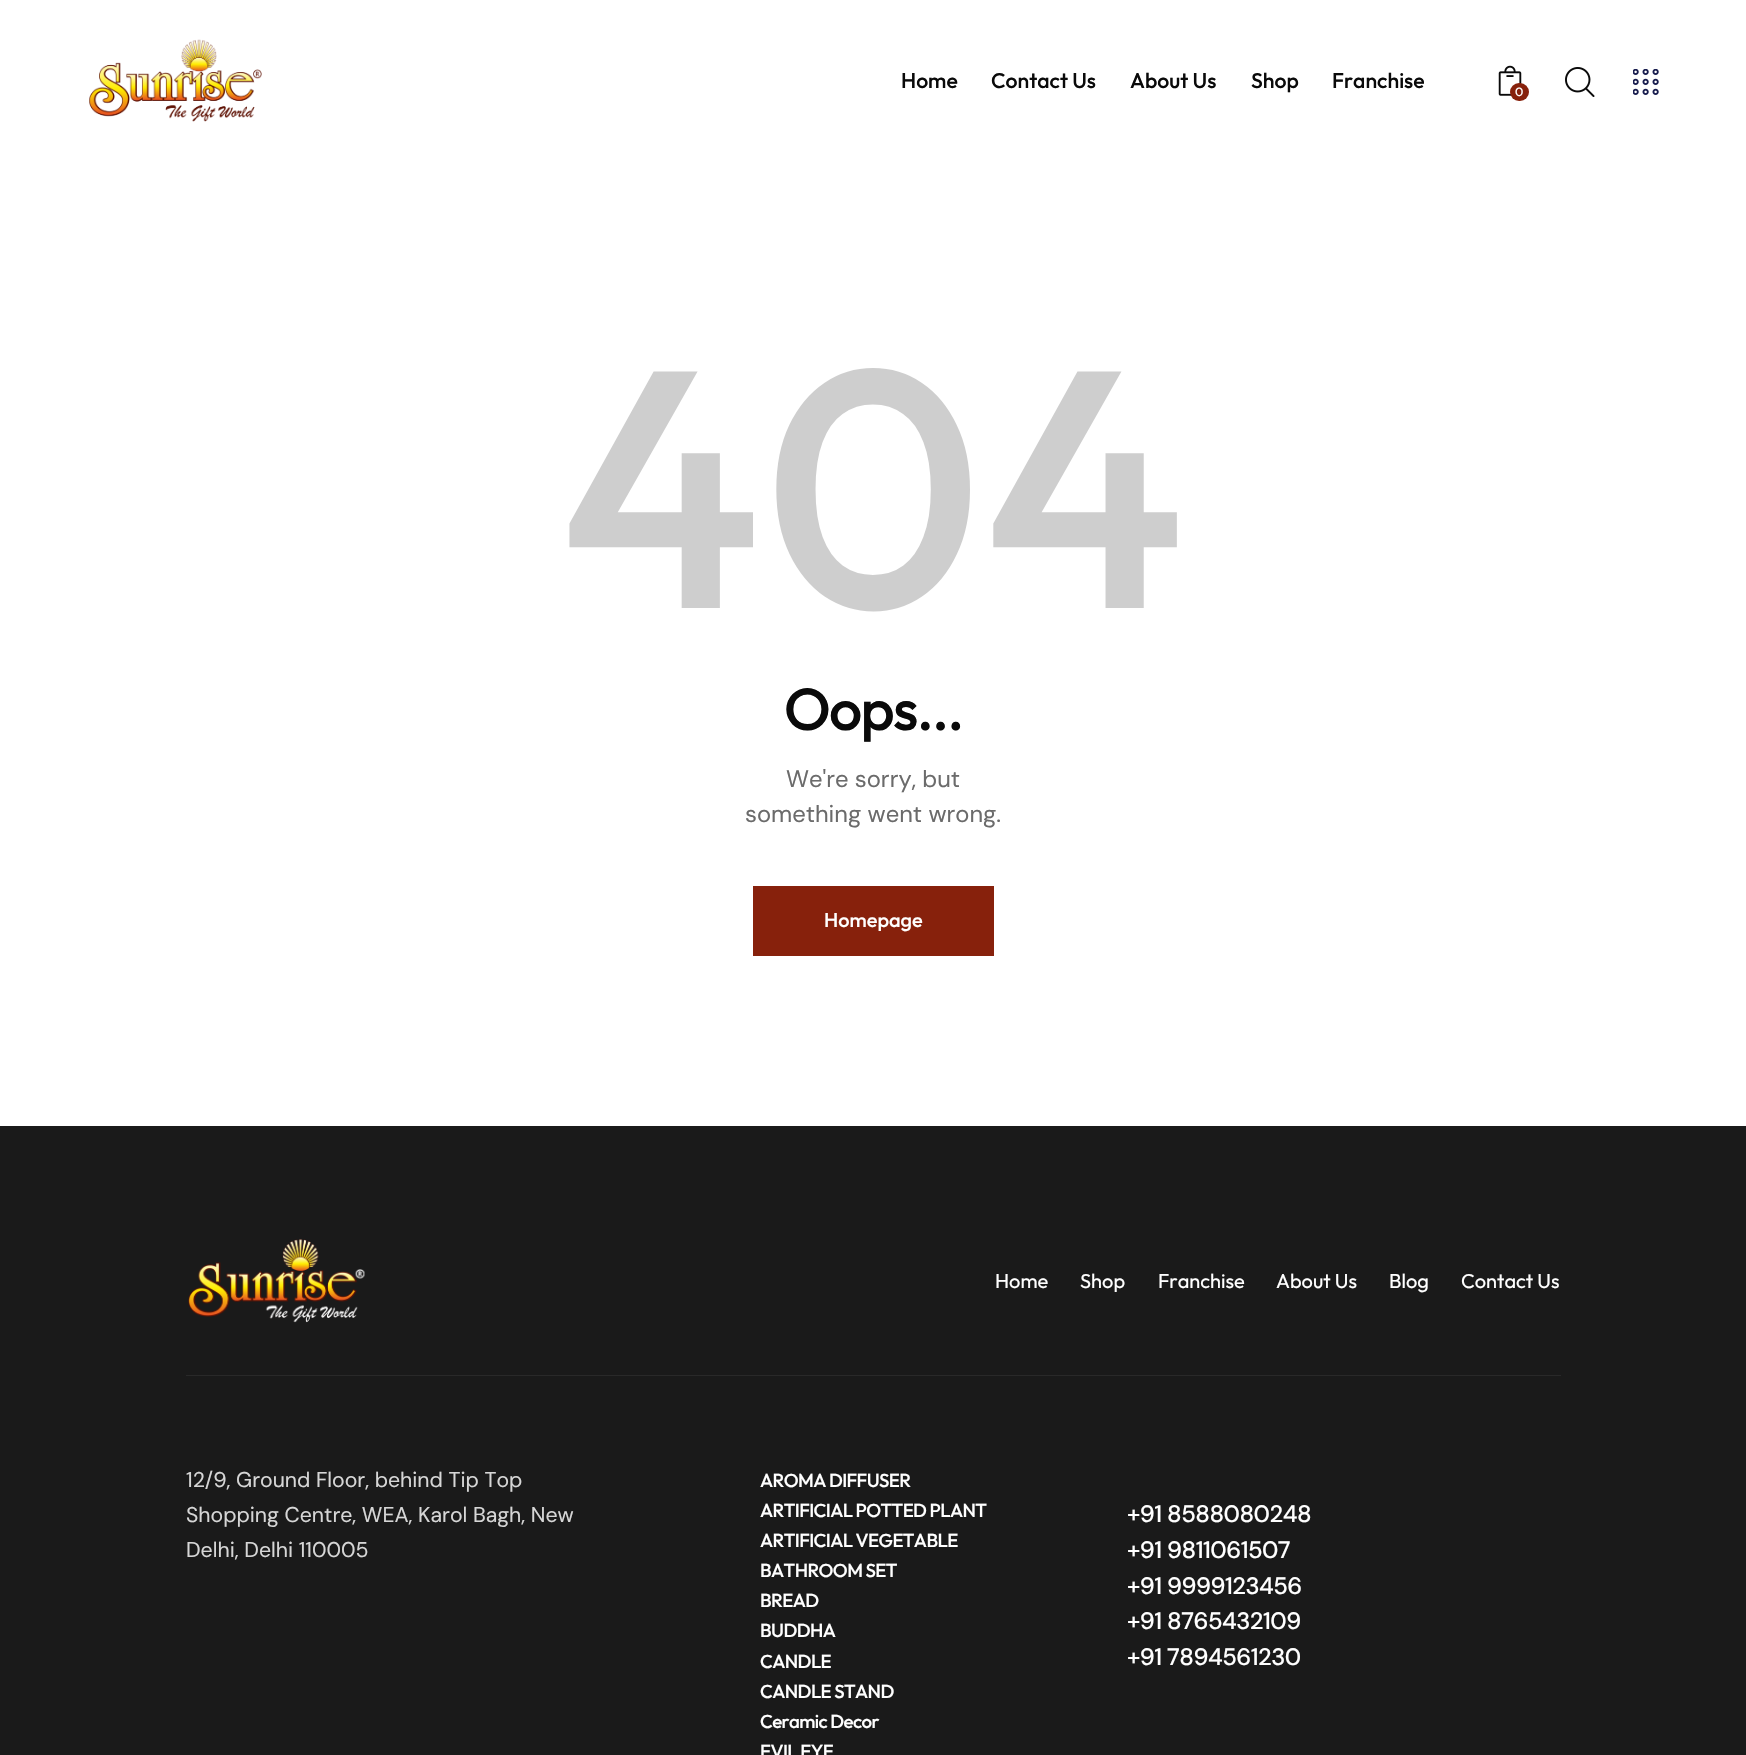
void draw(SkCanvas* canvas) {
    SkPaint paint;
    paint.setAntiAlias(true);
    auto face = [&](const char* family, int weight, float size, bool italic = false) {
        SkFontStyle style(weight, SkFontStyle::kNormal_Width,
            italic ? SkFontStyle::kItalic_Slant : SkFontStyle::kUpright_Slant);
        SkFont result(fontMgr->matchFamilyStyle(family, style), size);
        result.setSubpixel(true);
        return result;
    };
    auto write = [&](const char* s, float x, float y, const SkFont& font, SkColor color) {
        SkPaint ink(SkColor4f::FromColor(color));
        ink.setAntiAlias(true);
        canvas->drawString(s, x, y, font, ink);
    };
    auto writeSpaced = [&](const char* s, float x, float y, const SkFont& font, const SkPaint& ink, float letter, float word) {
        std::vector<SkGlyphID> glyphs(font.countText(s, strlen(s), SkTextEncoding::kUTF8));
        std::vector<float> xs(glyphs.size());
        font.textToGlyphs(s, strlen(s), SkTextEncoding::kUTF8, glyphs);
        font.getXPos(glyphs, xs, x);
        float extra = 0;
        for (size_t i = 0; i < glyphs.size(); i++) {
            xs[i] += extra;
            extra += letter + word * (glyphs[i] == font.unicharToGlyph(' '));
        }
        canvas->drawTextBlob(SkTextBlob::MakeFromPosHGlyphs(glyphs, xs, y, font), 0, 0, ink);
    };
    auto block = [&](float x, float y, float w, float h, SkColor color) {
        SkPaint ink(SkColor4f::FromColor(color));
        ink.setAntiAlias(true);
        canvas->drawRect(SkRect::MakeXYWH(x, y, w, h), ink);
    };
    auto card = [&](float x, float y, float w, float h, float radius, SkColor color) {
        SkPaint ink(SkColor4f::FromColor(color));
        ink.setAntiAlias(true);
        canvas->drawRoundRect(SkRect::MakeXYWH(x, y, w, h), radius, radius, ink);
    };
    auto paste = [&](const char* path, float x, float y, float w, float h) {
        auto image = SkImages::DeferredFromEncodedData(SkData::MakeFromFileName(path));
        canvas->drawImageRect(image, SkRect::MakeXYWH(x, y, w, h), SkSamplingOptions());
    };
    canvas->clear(SK_ColorWHITE);
    paste("pic1.png", 89, 39, 173, 83);
    auto kFont1 = face("Outfit", 500, 21.25f);
    write("Home", 901, 88, kFont1, SkColorSetRGB(10, 10, 10));
    write("Contact Us", 991, 88, kFont1, SkColorSetRGB(10, 10, 10));
    write("About Us", 1130, 88, kFont1, SkColorSetRGB(10, 10, 10));
    write("Shop", 1251, 88, kFont1, SkColorSetRGB(10, 10, 10));
    write("Franchise", 1332, 88, kFont1, SkColorSetRGB(10, 10, 10));
    paste("pic2.png", 1498, 65, 24, 31);
    card(1510, 83, 19, 18, 9, SkColorSetRGB(135, 33, 12));
    auto kFont2 = face("DM Sans", 500, 12);
    write("0", 1515, 96, kFont2, SK_ColorWHITE);
    paste("pic3.png", 1565, 67, 30, 30);
    paste("pic4.png", 1633, 69, 26, 26);
    auto kFont3 = face("Outfit", 500, 338);
    write("404", 560, 608, kFont3, SkColorSetRGB(206, 206, 206));
    auto kFont4 = face("Outfit", 500, 59);
    paint.setColor(SkColorSetRGB(10, 10, 10));
    writeSpaced("Oops...", 784, 730, kFont4, paint, -1.75f, 0);
    auto kFont5 = face("DM Sans", 400, 23.75f);
    write("We're sorry, but", 786, 787, kFont5, SkColorSetRGB(107, 107, 107));
    write("something went wrong.", 745, 822, kFont5, SkColorSetRGB(107, 107, 107));
    block(753, 886, 241, 70, SkColorSetRGB(135, 33, 12));
    auto kFont6 = face("Outfit", 500, 20);
    write("Homepage", 824, 927, kFont6, SK_ColorWHITE);
    block(0, 1126, 1746, 629, SkColorSetRGB(26, 26, 26));
    paste("pic5.png", 188, 1239, 177, 84);
    auto kFont7 = face("Outfit", 400, 20);
    write("Home", 995, 1288, kFont7, SK_ColorWHITE);
    write("Shop", 1080, 1288, kFont7, SK_ColorWHITE);
    write("Franchise", 1158, 1288, kFont7, SK_ColorWHITE);
    write("About Us", 1276, 1288, kFont7, SK_ColorWHITE);
    write("Blog", 1389, 1288, kFont7, SK_ColorWHITE);
    write("Contact Us", 1461, 1288, kFont7, SK_ColorWHITE);
    block(186, 1375, 1375, 1, SkColorSetRGB(41, 41, 41));
    auto kFont8 = face("DM Sans", 400, 21.25f);
    write("12/9, Ground Floor, behind Tip Top", 186, 1487, kFont8, SkColorSetRGB(214, 214, 214));
    write("Shopping Centre, WEA, Karol Bagh, New", 186, 1522, kFont8, SkColorSetRGB(214, 214, 214));
    write("Delhi, Delhi 110005", 186, 1557, kFont8, SkColorSetRGB(214, 214, 214));
    auto kFont9 = face("Outfit", 500, 18.75f);
    paint.setColor(SK_ColorWHITE);
    writeSpaced("AROMA DIFFUSER", 760, 1487, kFont9, paint, -0.6f, 0);
    writeSpaced("ARTIFICIAL POTTED PLANT", 760, 1517, kFont9, paint, -0.6f, 0);
    writeSpaced("ARTIFICIAL VEGETABLE", 760, 1547, kFont9, paint, -0.6f, 0);
    writeSpaced("BATHROOM SET", 760, 1577, kFont9, paint, -0.6f, 0);
    writeSpaced("BREAD", 760, 1607, kFont9, paint, -0.6f, 0);
    writeSpaced("BUDDHA", 760, 1637, kFont9, paint, -0.6f, 0);
    writeSpaced("CANDLE", 760, 1668, kFont9, paint, -0.6f, 0);
    writeSpaced("CANDLE STAND", 760, 1698, kFont9, paint, -0.6f, 0);
    writeSpaced("Ceramic Decor", 760, 1728, kFont9, paint, -0.6f, 0);
    writeSpaced("EVIL EYE", 760, 1758, kFont9, paint, -0.6f, 0);
    auto kFont10 = face("DM Sans", 500, 23.75f);
    writeSpaced("+91 8588080248", 1127, 1522, kFont10, paint, -0.5f, 0);
    writeSpaced("+91 9811061507", 1127, 1558, kFont10, paint, -0.5f, 0);
    writeSpaced("+91 9999123456", 1127, 1594, kFont10, paint, -0.5f, 0);
    writeSpaced("+91 8765432109", 1127, 1629, kFont10, paint, -0.5f, 0);
    writeSpaced("+91 7894561230", 1127, 1665, kFont10, paint, -0.5f, 0);
}
